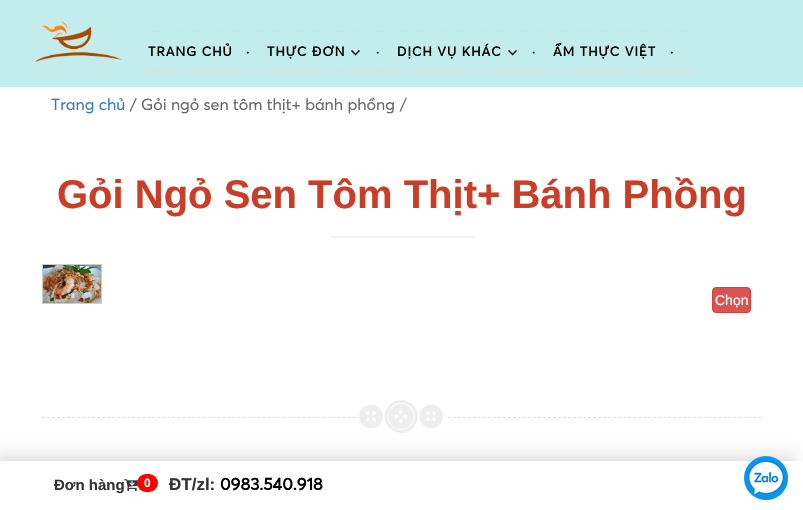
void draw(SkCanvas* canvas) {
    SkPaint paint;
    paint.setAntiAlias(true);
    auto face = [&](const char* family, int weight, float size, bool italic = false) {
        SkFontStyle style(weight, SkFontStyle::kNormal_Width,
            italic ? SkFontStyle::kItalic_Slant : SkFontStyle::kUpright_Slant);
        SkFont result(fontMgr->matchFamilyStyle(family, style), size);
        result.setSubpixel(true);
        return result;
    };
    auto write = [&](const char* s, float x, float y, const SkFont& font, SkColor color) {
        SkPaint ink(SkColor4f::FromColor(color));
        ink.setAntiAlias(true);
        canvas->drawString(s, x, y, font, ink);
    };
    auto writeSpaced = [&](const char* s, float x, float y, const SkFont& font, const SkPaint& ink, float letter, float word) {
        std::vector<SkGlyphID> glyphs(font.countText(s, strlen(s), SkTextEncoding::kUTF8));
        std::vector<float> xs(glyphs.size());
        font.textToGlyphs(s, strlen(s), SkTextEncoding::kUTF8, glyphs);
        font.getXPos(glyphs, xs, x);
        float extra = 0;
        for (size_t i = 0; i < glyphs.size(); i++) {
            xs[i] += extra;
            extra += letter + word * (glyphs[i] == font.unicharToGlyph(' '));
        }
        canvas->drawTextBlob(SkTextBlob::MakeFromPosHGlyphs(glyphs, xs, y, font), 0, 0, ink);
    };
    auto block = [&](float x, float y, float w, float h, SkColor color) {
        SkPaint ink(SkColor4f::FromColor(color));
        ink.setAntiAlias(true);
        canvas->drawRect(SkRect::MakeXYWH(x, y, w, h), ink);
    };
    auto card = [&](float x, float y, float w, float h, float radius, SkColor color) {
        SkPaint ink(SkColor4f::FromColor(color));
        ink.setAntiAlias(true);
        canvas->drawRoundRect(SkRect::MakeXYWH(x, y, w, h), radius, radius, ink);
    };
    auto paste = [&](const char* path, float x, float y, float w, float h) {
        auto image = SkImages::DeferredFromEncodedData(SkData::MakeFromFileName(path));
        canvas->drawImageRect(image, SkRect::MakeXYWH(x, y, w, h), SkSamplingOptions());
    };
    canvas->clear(SK_ColorWHITE);
    block(0, 0, 803, 87, SkColorSetRGB(195, 236, 236));
    paste("pic1.png", 35, 21, 87, 44);
    paint.setStyle(SkPaint::kStroke_Style);
    paint.setStrokeWidth(1);
    paint.setColor(SkColorSetRGB(221, 221, 221));
    paint.setPathEffect(SkDashPathEffect::Make({{3, 1.98f}}, 0));
    canvas->drawPath(SkPathBuilder().moveTo(142, 31.5f).lineTo(698, 31.5f).detach(), paint);
    paint.setPathEffect(nullptr);
    paint.setPathEffect(SkDashPathEffect::Make({{3, 1.98f}}, 0));
    canvas->drawPath(SkPathBuilder().moveTo(142, 70.5f).lineTo(698, 70.5f).detach(), paint);
    paint.setPathEffect(nullptr);
    auto kFont1 = face("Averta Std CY", 700, 13);
    paint.setStyle(SkPaint::kFill_Style);
    paint.setColor(SK_ColorBLACK);
    writeSpaced("TRANG CHỦ", 148, 56, kFont1, paint, 1, 0);
    writeSpaced("·", 246, 56, kFont1, paint, 1, 0);
    writeSpaced("THỰC ĐƠN", 267, 56, kFont1, paint, 1, 0);
    paste("pic2.png", 351, 50, 9, 6);
    writeSpaced("·", 376, 56, kFont1, paint, 1, 0);
    writeSpaced("DỊCH VỤ KHÁC", 397, 56, kFont1, paint, 1, 0);
    paste("pic2.png", 508, 50, 9, 6);
    writeSpaced("·", 532, 56, kFont1, paint, 1, 0);
    writeSpaced("ẨM THỰC VIỆT", 553, 56, kFont1, paint, 1, 0);
    writeSpaced("·", 670, 56, kFont1, paint, 1, 0);
    auto kFont2 = face("Averta Std CY", 400, 16);
    write("Trang chủ", 51, 110, kFont2, SkColorSetRGB(51, 122, 183));
    write("/", 130, 110, kFont2, SkColorSetRGB(102, 102, 102));
    write("Gỏi ngỏ sen tôm thịt+ bánh phồng", 141, 110, kFont2, SkColorSetRGB(102, 102, 102));
    write("/", 400, 110, kFont2, SkColorSetRGB(102, 102, 102));
    paint.setStyle(SkPaint::kStroke_Style);
    paint.setColor(SkColorSetRGB(221, 221, 221));
    paint.setPathEffect(SkDashPathEffect::Make({{3, 2.01f}}, 0));
    canvas->drawPath(SkPathBuilder().moveTo(42, 417.5f).lineTo(762, 417.5f).detach(), paint);
    paint.setPathEffect(nullptr);
    auto kFont3 = face("Liberation Sans", 700, 40);
    write("Gỏi Ngỏ Sen Tôm Thịt+ Bánh Phồng", 57, 208, kFont3, SkColorSetRGB(202, 61, 38));
    block(330, 236, 144, 2, SkColorSetRGB(243, 243, 243));
    paint.setColor(SkColorSetRGB(204, 204, 204));
    canvas->drawRect(SkRect::MakeXYWH(42.5f, 264.5f, 59, 39), paint);
    paste("pic3.png", 43, 265, 58, 38);
    paint.setStyle(SkPaint::kFill_Style);
    paint.setColor(SkColorSetRGB(217, 83, 79));
    canvas->drawRoundRect(SkRect::MakeXYWH(712.5f, 287.5f, 38, 25), 3.5f, 3.5f, paint);
    paint.setStyle(SkPaint::kStroke_Style);
    paint.setColor(SkColorSetRGB(212, 63, 58));
    canvas->drawRoundRect(SkRect::MakeXYWH(712.5f, 287.5f, 38, 25), 3.5f, 3.5f, paint);
    auto kFont4 = face("Liberation Sans", 400, 14);
    write("Chọn", 715, 305, kFont4, SK_ColorWHITE);
    block(358, 417, 88, 1, SK_ColorWHITE);
    paste("pic4.png", 359, 400, 84, 33);
    paint.setStyle(SkPaint::kFill_Style);
    paint.setColor(SkColorSetARGB(36, 0, 0, 0));
    paint.setMaskFilter(SkMaskFilter::MakeBlur(kNormal_SkBlurStyle, 8));
    canvas->drawRect(SkRect::MakeXYWH(-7, 456, 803, 49), paint);
    paint.setMaskFilter(nullptr);
    block(0, 461, 803, 49, SK_ColorWHITE);
    auto kFont5 = face("Liberation Sans", 700, 15);
    write("Đơn hàng", 54, 490, kFont5, SkColorSetRGB(51, 51, 51));
    paste("pic5.png", 124, 479, 14, 13);
    card(137, 474, 21, 18, 9, SkColorSetRGB(255, 0, 0));
    auto kFont6 = face("Liberation Sans", 700, 12);
    write("0", 144, 487, kFont6, SK_ColorWHITE);
    auto kFont7 = face("Liberation Sans", 700, 17);
    write("ĐT/zl:", 169, 490, kFont7, SkColorSetRGB(51, 51, 51));
    auto kFont8 = face("Averta Std CY", 700, 17);
    write("0983.540.918", 220, 490, kFont8, SK_ColorBLACK);
    paste("pic6.png", 744, 456, 44, 44);
}
